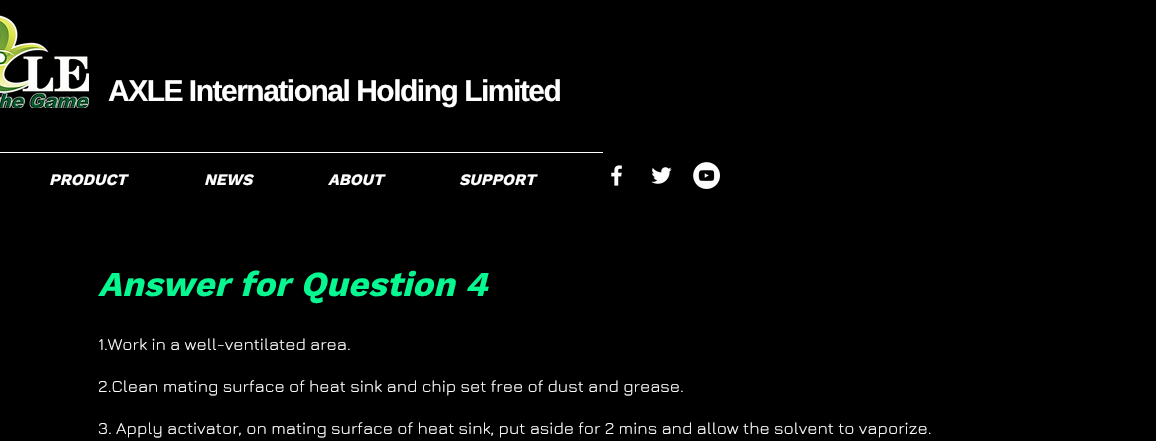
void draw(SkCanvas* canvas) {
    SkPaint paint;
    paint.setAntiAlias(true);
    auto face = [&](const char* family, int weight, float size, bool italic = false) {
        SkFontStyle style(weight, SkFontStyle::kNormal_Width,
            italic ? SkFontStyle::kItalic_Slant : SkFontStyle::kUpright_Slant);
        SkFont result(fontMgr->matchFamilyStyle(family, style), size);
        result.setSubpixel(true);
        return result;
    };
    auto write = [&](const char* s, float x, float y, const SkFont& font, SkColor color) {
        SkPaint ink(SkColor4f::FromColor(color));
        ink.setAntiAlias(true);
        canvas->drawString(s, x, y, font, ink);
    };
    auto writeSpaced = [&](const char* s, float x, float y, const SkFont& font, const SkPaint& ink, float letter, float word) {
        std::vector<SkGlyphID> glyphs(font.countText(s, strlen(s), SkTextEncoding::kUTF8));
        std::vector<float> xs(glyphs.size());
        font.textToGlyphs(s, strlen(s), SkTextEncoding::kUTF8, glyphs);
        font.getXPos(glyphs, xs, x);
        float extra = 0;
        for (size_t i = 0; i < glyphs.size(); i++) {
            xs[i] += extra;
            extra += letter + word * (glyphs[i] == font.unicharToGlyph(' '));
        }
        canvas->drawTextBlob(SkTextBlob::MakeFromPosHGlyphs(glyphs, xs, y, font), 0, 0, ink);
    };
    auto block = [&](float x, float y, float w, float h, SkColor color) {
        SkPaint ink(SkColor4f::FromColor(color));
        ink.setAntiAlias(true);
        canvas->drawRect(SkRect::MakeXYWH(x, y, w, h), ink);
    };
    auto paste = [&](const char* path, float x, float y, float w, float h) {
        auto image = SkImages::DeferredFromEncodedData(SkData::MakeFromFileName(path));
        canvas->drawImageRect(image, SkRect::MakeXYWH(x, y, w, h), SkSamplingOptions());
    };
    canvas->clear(SK_ColorBLACK);
    paste("pic1.png", 0, 15, 89, 93);
    auto kFont1 = face("Liberation Sans", 700, 30);
    paint.setColor(SK_ColorWHITE);
    writeSpaced("AXLE International Holding Limited", 108, 101, kFont1, paint, -1.5f, 0);
    block(0, 152, 603, 1, SK_ColorWHITE);
    auto kFont2 = face("Work Sans", 700, 16, true);
    write("PRODUCT", 49, 185, kFont2, SK_ColorWHITE);
    write("NEWS", 204, 185, kFont2, SK_ColorWHITE);
    write("ABOUT", 328, 185, kFont2, SK_ColorWHITE);
    write("SUPPORT", 459, 185, kFont2, SK_ColorWHITE);
    paste("pic2.png", 611, 165, 11, 21);
    paste("pic3.png", 651, 167, 21, 17);
    paste("pic4.png", 693, 162, 27, 27);
    auto kFont3 = face("Work Sans", 700, 35, true);
    write("Answer for Question 4", 98, 296, kFont3, SkColorSetRGB(7, 247, 145));
    auto kFont4 = face("Jura", 400, 17);
    write("1.Work in a well-ventilated area.", 98, 350, kFont4, SK_ColorWHITE);
    write("2.Clean mating surface of heat sink and chip set free of dust and grease.", 98, 392, kFont4, SK_ColorWHITE);
    write("3. Apply activator, on mating surface of heat sink, put aside for 2 mins and allow the solvent to vaporize.", 98, 434, kFont4, SK_ColorWHITE);
}
